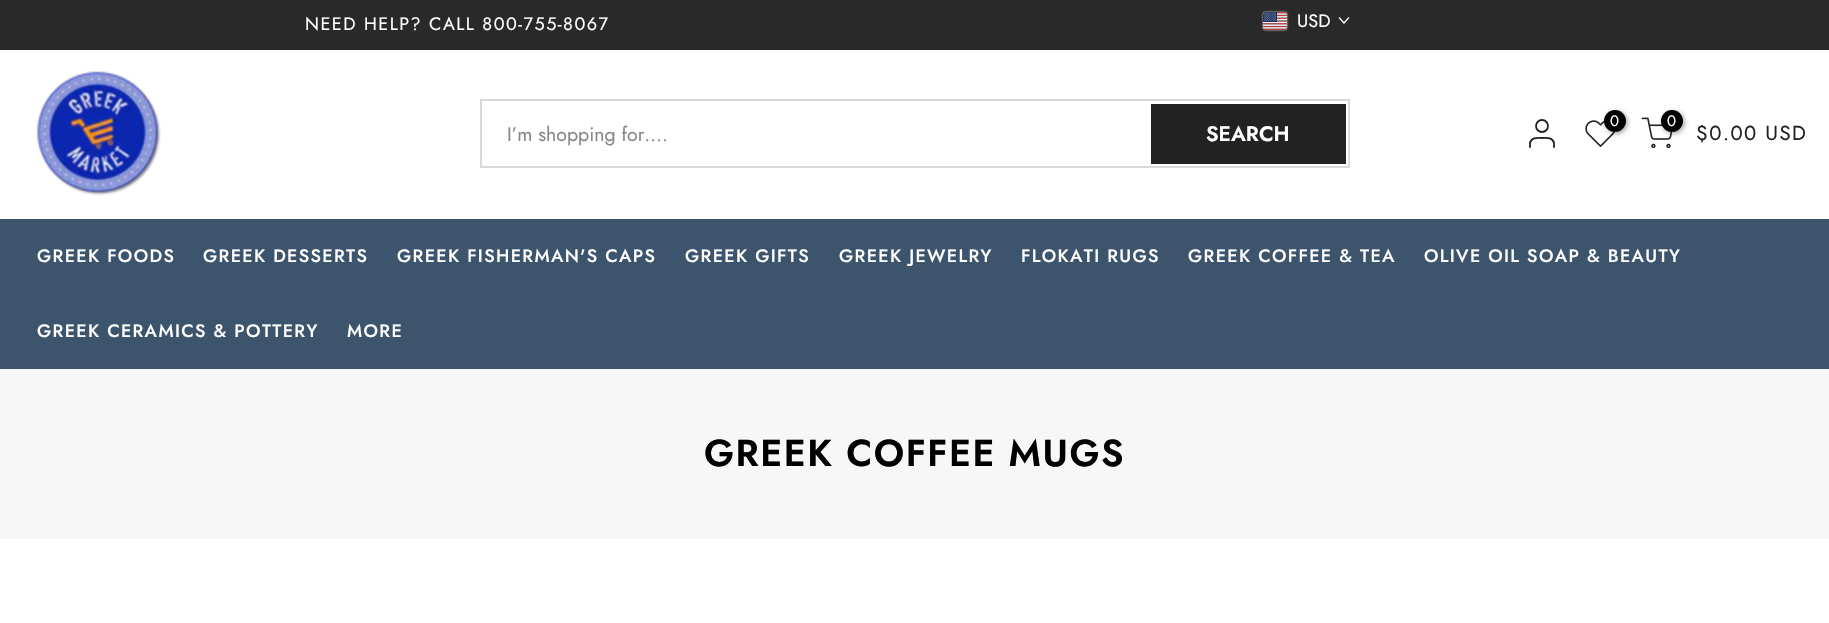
void draw(SkCanvas* canvas) {
    SkPaint paint;
    paint.setAntiAlias(true);
    auto face = [&](const char* family, int weight, float size, bool italic = false) {
        SkFontStyle style(weight, SkFontStyle::kNormal_Width,
            italic ? SkFontStyle::kItalic_Slant : SkFontStyle::kUpright_Slant);
        SkFont result(fontMgr->matchFamilyStyle(family, style), size);
        result.setSubpixel(true);
        return result;
    };
    auto write = [&](const char* s, float x, float y, const SkFont& font, SkColor color) {
        SkPaint ink(SkColor4f::FromColor(color));
        ink.setAntiAlias(true);
        canvas->drawString(s, x, y, font, ink);
    };
    auto writeSpaced = [&](const char* s, float x, float y, const SkFont& font, const SkPaint& ink, float letter, float word) {
        std::vector<SkGlyphID> glyphs(font.countText(s, strlen(s), SkTextEncoding::kUTF8));
        std::vector<float> xs(glyphs.size());
        font.textToGlyphs(s, strlen(s), SkTextEncoding::kUTF8, glyphs);
        font.getXPos(glyphs, xs, x);
        float extra = 0;
        for (size_t i = 0; i < glyphs.size(); i++) {
            xs[i] += extra;
            extra += letter + word * (glyphs[i] == font.unicharToGlyph(' '));
        }
        canvas->drawTextBlob(SkTextBlob::MakeFromPosHGlyphs(glyphs, xs, y, font), 0, 0, ink);
    };
    auto block = [&](float x, float y, float w, float h, SkColor color) {
        SkPaint ink(SkColor4f::FromColor(color));
        ink.setAntiAlias(true);
        canvas->drawRect(SkRect::MakeXYWH(x, y, w, h), ink);
    };
    auto paste = [&](const char* path, float x, float y, float w, float h) {
        auto image = SkImages::DeferredFromEncodedData(SkData::MakeFromFileName(path));
        canvas->drawImageRect(image, SkRect::MakeXYWH(x, y, w, h), SkSamplingOptions());
    };
    canvas->clear(SK_ColorWHITE);
    block(0, 0, 1829, 50, SkColorSetRGB(41, 41, 41));
    auto kFont1 = face("Jost", 400, 18);
    paint.setColor(SK_ColorWHITE);
    writeSpaced("NEED HELP? CALL 800-755-8067", 305, 30, kFont1, paint, 1.5f, 0);
    canvas->save();
    canvas->clipPath(SkPathBuilder(SkPathFillType::kEvenOdd).moveTo(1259, 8).lineTo(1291, 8).lineTo(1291, 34).lineTo(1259, 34).close().moveTo(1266, 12).lineTo(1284, 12).cubicTo(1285.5f, 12, 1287, 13.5f, 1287, 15).lineTo(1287, 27).cubicTo(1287, 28.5f, 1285.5f, 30, 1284, 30).lineTo(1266, 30).cubicTo(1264.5f, 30, 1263, 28.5f, 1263, 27).lineTo(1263, 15).cubicTo(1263, 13.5f, 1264.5f, 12, 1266, 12).close().detach(), true);
    paint.setMaskFilter(SkMaskFilter::MakeBlur(kNormal_SkBlurStyle, 1));
    canvas->drawRoundRect(SkRect::MakeXYWH(1263, 12, 24, 18), 3, 3, paint);
    paint.setMaskFilter(nullptr);
    canvas->restore();
    paste("pic1.png", 1263, 12, 24, 18);
    write("USD", 1297, 27, kFont1, SK_ColorWHITE);
    paint.setStyle(SkPaint::kStroke_Style);
    paint.setStrokeWidth(1.3f);
    paint.setStrokeCap(SkPaint::kSquare_Cap);
    canvas->drawPath(SkPathBuilder().moveTo(1348.5f, 18).lineTo(1344, 23).lineTo(1339.5f, 18).detach(), paint);
    paste("pic2.png", 36, 71, 125, 125);
    paint.setStrokeWidth(2);
    paint.setStrokeCap(SkPaint::kButt_Cap);
    paint.setColor(SkColorSetRGB(217, 217, 217));
    canvas->drawRect(SkRect::MakeXYWH(481, 100, 868, 67), paint);
    auto kFont2 = face("Jost", 400, 19.5f);
    write("I’m shopping for....", 507, 141, kFont2, SkColorSetRGB(135, 135, 135));
    block(1151, 104, 195, 60, SkColorSetRGB(34, 34, 34));
    auto kFont3 = face("Jost", 600, 21);
    write("SEARCH", 1206, 141, kFont3, SK_ColorWHITE);
    paint.setStrokeWidth(1.8f);
    paint.setColor(SkColorSetRGB(34, 34, 34));
    canvas->drawCircle(1542, 126, 6, paint);
    paint.setStrokeCap(SkPaint::kRound_Cap);
    paint.setStrokeJoin(SkPaint::kRound_Join);
    canvas->drawPath(SkPathBuilder().moveTo(1554, 147).lineTo(1554, 143).cubicTo(1552.5f, 137, 1546.5f, 138, 1542, 138).cubicTo(1537.5f, 138, 1531.5f, 137, 1530, 143).lineTo(1530, 147).detach(), paint);
    paste("pic3.png", 1585, 120, 31, 27);
    paint.setStyle(SkPaint::kFill_Style);
    paint.setColor(SkColorSetARGB(77, 0, 0, 0));
    paint.setMaskFilter(SkMaskFilter::MakeBlur(kNormal_SkBlurStyle, 2));
    canvas->drawRoundRect(SkRect::MakeXYWH(1605, 111, 23, 23), 11.5f, 11.5f, paint);
    paint.setMaskFilter(nullptr);
    paint.setColor(SK_ColorBLACK);
    canvas->drawCircle(1615, 121, 11, paint);
    auto kFont4 = face("Jost", 400, 15);
    write("0", 1610, 126, kFont4, SK_ColorWHITE);
    paste("pic4.png", 1641, 117, 32, 32);
    paint.setColor(SkColorSetARGB(77, 0, 0, 0));
    paint.setMaskFilter(SkMaskFilter::MakeBlur(kNormal_SkBlurStyle, 2));
    canvas->drawRoundRect(SkRect::MakeXYWH(1662, 111, 23, 23), 11.5f, 11.5f, paint);
    paint.setMaskFilter(nullptr);
    paint.setColor(SK_ColorBLACK);
    canvas->drawCircle(1672, 121, 11, paint);
    write("0", 1667, 126, kFont4, SK_ColorWHITE);
    canvas->save();
    canvas->clipRect(SkRect::MakeXYWH(1697, 125, 111, 19));
    auto kFont5 = face("Jost", 400, 20.25f);
    paint.setColor(SkColorSetRGB(34, 34, 34));
    writeSpaced("$0.00 USD", 1696, 140, kFont5, paint, 1.5f, 0);
    canvas->restore();
    block(0, 219, 1829, 150, SkColorSetRGB(60, 84, 108));
    auto kFont6 = face("Jost", 500, 18);
    paint.setColor(SK_ColorWHITE);
    writeSpaced("GREEK FOODS", 37, 262, kFont6, paint, 1.35f, 0);
    writeSpaced("GREEK DESSERTS", 203, 262, kFont6, paint, 1.35f, 0);
    writeSpaced("GREEK FISHERMAN'S CAPS", 397, 262, kFont6, paint, 1.35f, 0);
    writeSpaced("GREEK GIFTS", 685, 262, kFont6, paint, 1.35f, 0);
    writeSpaced("GREEK JEWELRY", 839, 262, kFont6, paint, 1.35f, 0);
    writeSpaced("FLOKATI RUGS", 1021, 262, kFont6, paint, 1.35f, 0);
    writeSpaced("GREEK COFFEE & TEA", 1188, 262, kFont6, paint, 1.35f, 0);
    writeSpaced("OLIVE OIL SOAP & BEAUTY", 1424, 262, kFont6, paint, 1.35f, 0);
    writeSpaced("GREEK CERAMICS & POTTERY", 37, 337, kFont6, paint, 1.35f, 0);
    writeSpaced("MORE", 347, 337, kFont6, paint, 1.35f, 0);
    block(0, 369, 1829, 170, SkColorSetRGB(247, 247, 247));
    auto kFont7 = face("Jost", 600, 37.5f);
    paint.setColor(SK_ColorBLACK);
    writeSpaced("GREEK COFFEE MUGS", 704, 466, kFont7, paint, 1.5f, 0);
}
